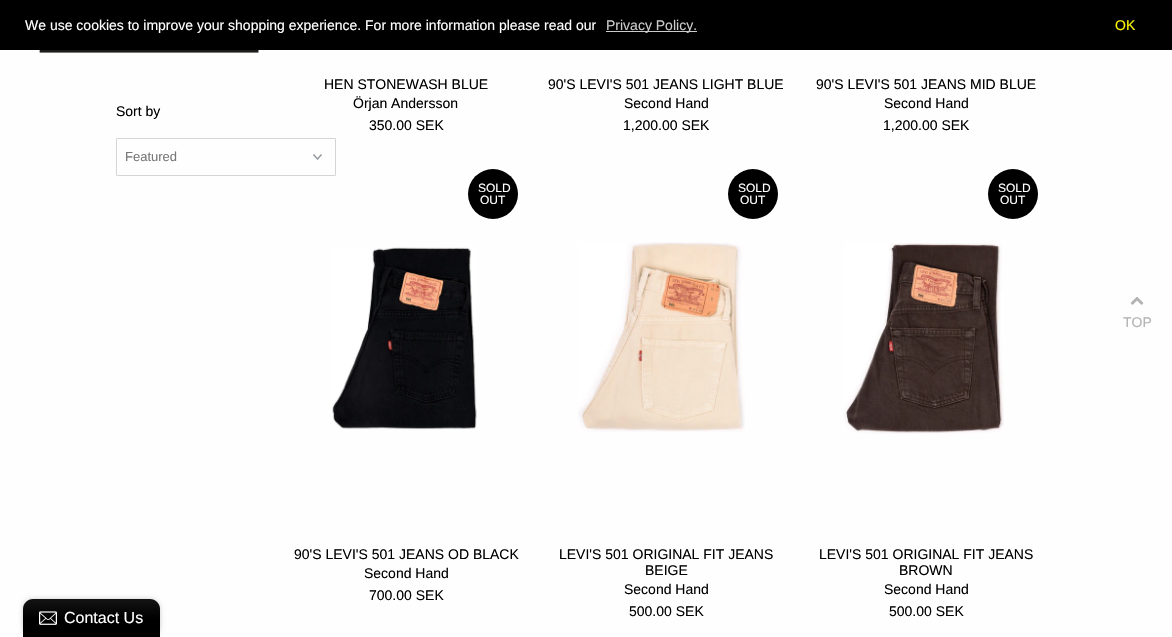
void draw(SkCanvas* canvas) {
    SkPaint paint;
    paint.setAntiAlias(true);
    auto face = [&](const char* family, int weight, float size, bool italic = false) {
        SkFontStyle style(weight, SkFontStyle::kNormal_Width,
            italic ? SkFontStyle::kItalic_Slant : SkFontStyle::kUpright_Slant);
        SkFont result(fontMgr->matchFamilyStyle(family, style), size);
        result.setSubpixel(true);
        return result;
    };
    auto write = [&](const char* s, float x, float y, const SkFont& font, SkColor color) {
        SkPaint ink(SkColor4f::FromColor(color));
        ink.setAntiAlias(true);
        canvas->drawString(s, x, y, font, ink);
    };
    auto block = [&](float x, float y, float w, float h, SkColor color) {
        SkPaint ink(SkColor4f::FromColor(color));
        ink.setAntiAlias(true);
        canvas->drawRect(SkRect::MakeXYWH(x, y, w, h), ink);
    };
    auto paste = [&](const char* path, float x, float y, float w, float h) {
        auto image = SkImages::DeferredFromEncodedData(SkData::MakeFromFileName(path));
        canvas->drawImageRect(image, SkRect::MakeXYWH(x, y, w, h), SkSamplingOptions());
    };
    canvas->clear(SkColorSetRGB(254, 254, 254));
    block(0, 0, 1172, 50, SK_ColorBLACK);
    auto kFont1 = face("Liberation Sans", 400, 14);
    write("We use cookies to improve your shopping experience. For more information please read our", 25, 30, kFont1, SK_ColorWHITE);
    block(606, 31, 91, 1, SkColorSetRGB(204, 204, 204));
    write("Privacy Policy.", 606, 30, kFont1, SkColorSetRGB(204, 204, 204));
    write("OK", 1115, 30, kFont1, SkColorSetRGB(250, 246, 5));
    paste("pic1.png", 39, 50, 220, 3);
    write("Sort by", 116, 116, kFont1, SK_ColorBLACK);
    paste("pic2.png", 313, 154, 9, 6);
    paint.setStyle(SkPaint::kStroke_Style);
    paint.setStrokeWidth(1);
    paint.setColor(SkColorSetRGB(213, 213, 213));
    canvas->drawRoundRect(SkRect::MakeXYWH(116.5f, 138.5f, 219, 37), 0.5f, 0.5f, paint);
    auto kFont2 = face("Liberation Sans", 400, 13);
    write("Featured", 125, 161, kFont2, SkColorSetRGB(119, 119, 119));
    write("HEN STONEWASH BLUE", 324, 89, kFont1, SK_ColorBLACK);
    write("Örjan Andersson", 353, 108, kFont1, SK_ColorBLACK);
    write("350.00 SEK", 369, 130, kFont1, SK_ColorBLACK);
    write("90'S LEVI'S 501 JEANS LIGHT BLUE", 548, 89, kFont1, SK_ColorBLACK);
    write("Second Hand", 624, 108, kFont1, SK_ColorBLACK);
    write("1,200.00 SEK", 623, 130, kFont1, SK_ColorBLACK);
    write("90'S LEVI'S 501 JEANS MID BLUE", 816, 89, kFont1, SK_ColorBLACK);
    write("Second Hand", 884, 108, kFont1, SK_ColorBLACK);
    write("1,200.00 SEK", 883, 130, kFont1, SK_ColorBLACK);
    paint.setStyle(SkPaint::kFill_Style);
    paint.setColor(SK_ColorBLACK);
    canvas->drawCircle(493, 194, 25, paint);
    auto kFont3 = face("Liberation Sans", 400, 12);
    write("SOLD", 478, 192, kFont3, SK_ColorWHITE);
    write("OUT", 480, 204, kFont3, SK_ColorWHITE);
    paste("pic3.png", 332, 247, 145, 183);
    write("90'S LEVI'S 501 JEANS OD BLACK", 294, 559, kFont1, SK_ColorBLACK);
    write("Second Hand", 364, 578, kFont1, SK_ColorBLACK);
    write("700.00 SEK", 369, 600, kFont1, SK_ColorBLACK);
    canvas->drawCircle(753, 194, 25, paint);
    write("SOLD", 738, 192, kFont3, SK_ColorWHITE);
    write("OUT", 740, 204, kFont3, SK_ColorWHITE);
    paste("pic4.png", 578, 242, 167, 190);
    write("LEVI'S 501 ORIGINAL FIT JEANS", 559, 559, kFont1, SK_ColorBLACK);
    write("BEIGE", 645, 575, kFont1, SK_ColorBLACK);
    write("Second Hand", 624, 594, kFont1, SK_ColorBLACK);
    write("500.00 SEK", 629, 616, kFont1, SK_ColorBLACK);
    canvas->drawCircle(1013, 194, 25, paint);
    write("SOLD", 998, 192, kFont3, SK_ColorWHITE);
    write("OUT", 1000, 204, kFont3, SK_ColorWHITE);
    paste("pic5.png", 844, 243, 160, 191);
    write("LEVI'S 501 ORIGINAL FIT JEANS", 819, 559, kFont1, SK_ColorBLACK);
    write("BROWN", 899, 575, kFont1, SK_ColorBLACK);
    write("Second Hand", 884, 594, kFont1, SK_ColorBLACK);
    write("500.00 SEK", 889, 616, kFont1, SK_ColorBLACK);
    paste("pic6.png", 1130, 297, 14, 8);
    write("TOP", 1123, 327, kFont1, SkColorSetRGB(178, 178, 178));
    paint.setColor(SkColorSetARGB(51, 0, 0, 0));
    paint.setMaskFilter(SkMaskFilter::MakeBlur(kNormal_SkBlurStyle, 2.5f));
    canvas->drawRoundRect(SkRect::MakeXYWH(23, 599, 137, 38), 10, 10, paint);
    paint.setMaskFilter(nullptr);
    {
        const SkColor colors[] = {SkColorSetRGB(20, 20, 20), SK_ColorBLACK};
        const float stops[] = {0, 0.5f};
        const SkPoint ends[] = {{92, 599}, {92, 637}};
        paint.setShader(SkGradientShader::MakeLinear(ends, colors, stops, 2, SkTileMode::kClamp));
        paint.setAlpha(255);
    }
    canvas->drawPath(SkPathBuilder().moveTo(33, 599).lineTo(150, 599).cubicTo(155.5f, 599, 160, 603.5f, 160, 609).lineTo(160, 637).lineTo(23, 637).lineTo(23, 609).cubicTo(23, 603.5f, 27.5f, 599, 33, 599).close().detach(), paint);
    paste("pic7.png", 39, 611, 18, 14);
    auto kFont4 = face("Liberation Sans", 400, 16);
    write("Contact Us", 64, 623, kFont4, SK_ColorWHITE);
}
